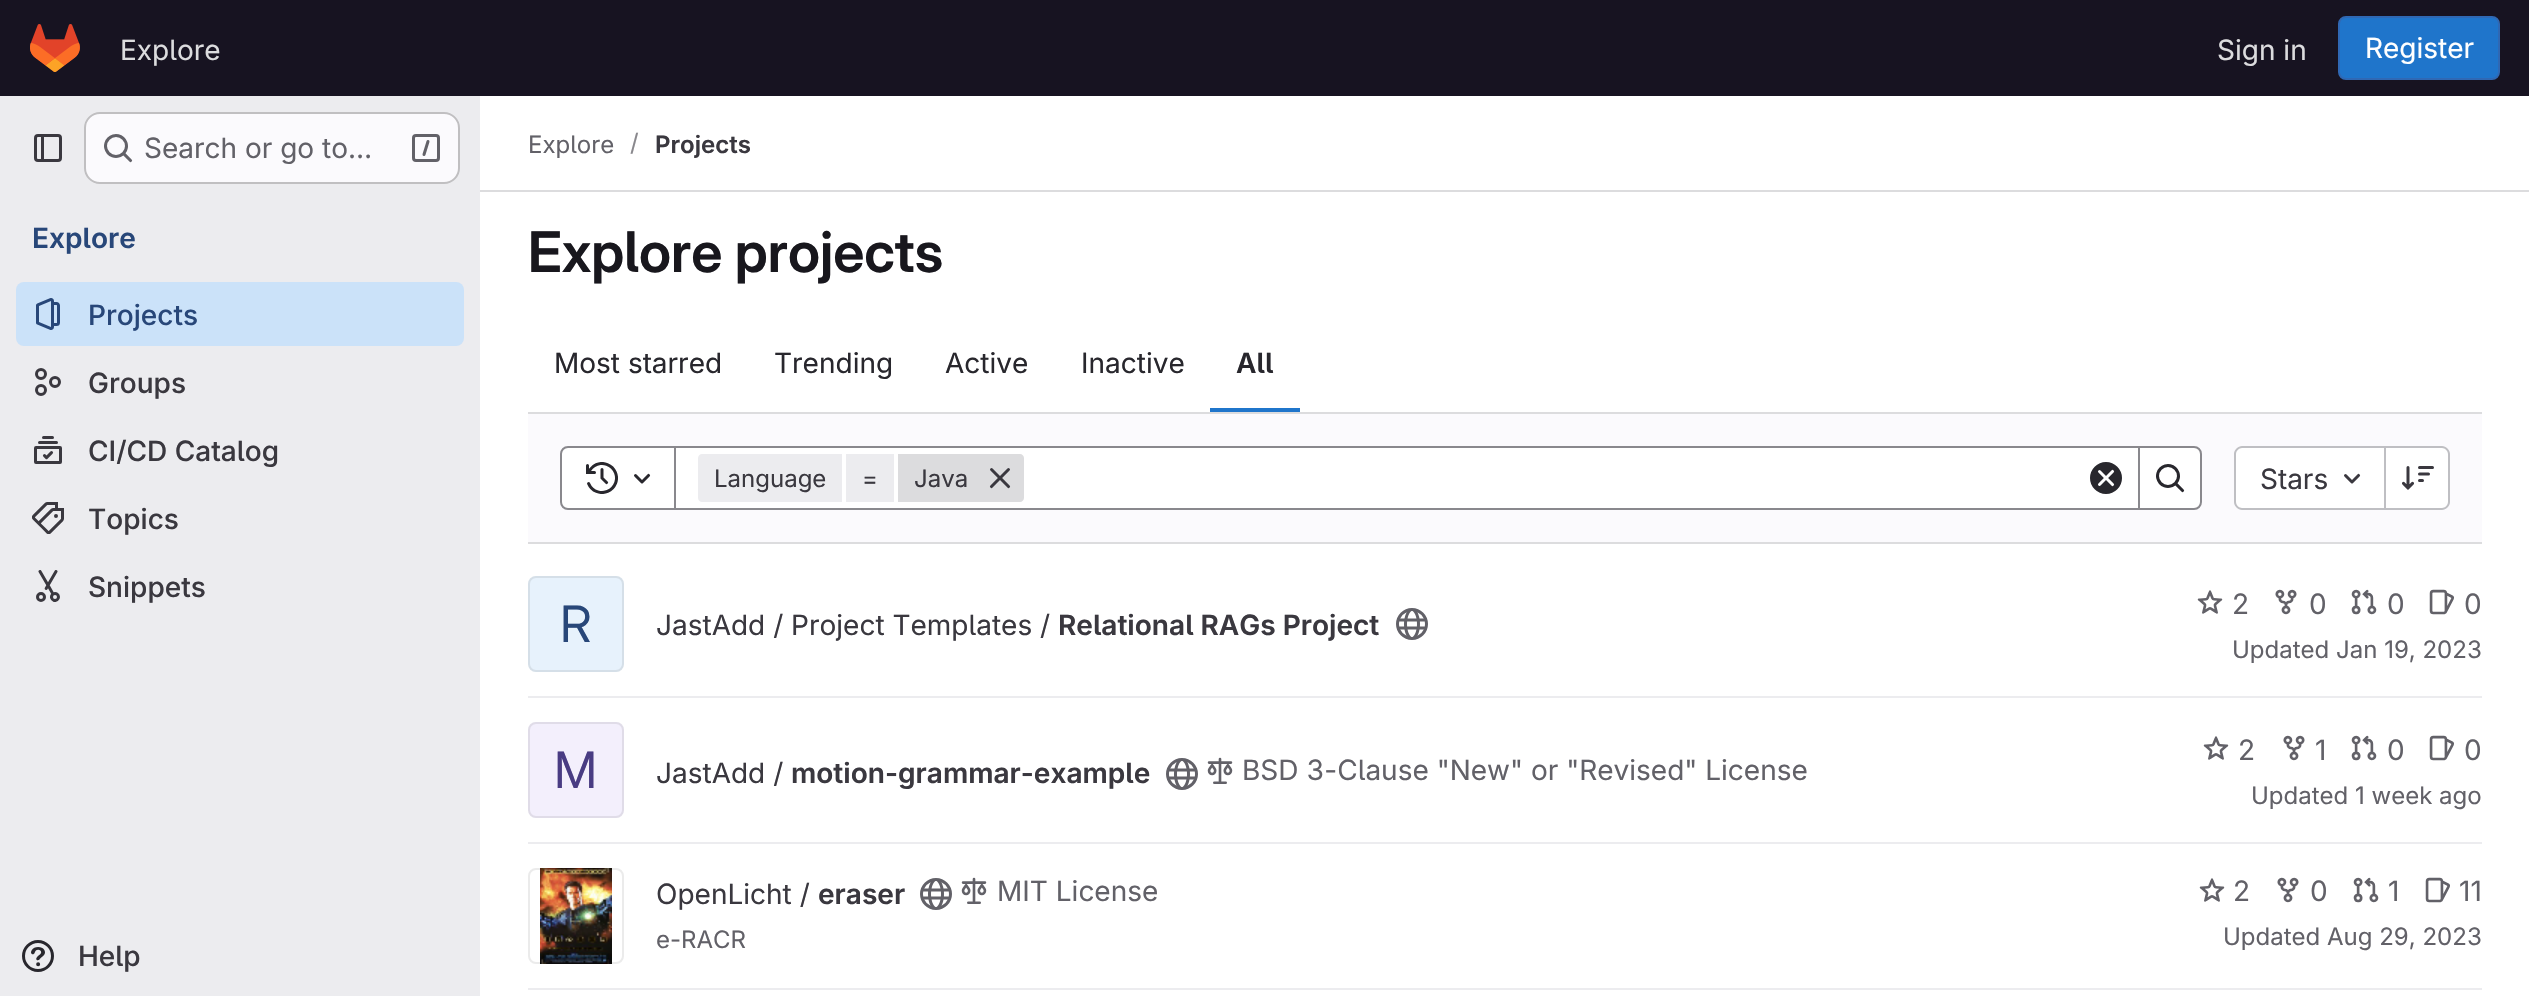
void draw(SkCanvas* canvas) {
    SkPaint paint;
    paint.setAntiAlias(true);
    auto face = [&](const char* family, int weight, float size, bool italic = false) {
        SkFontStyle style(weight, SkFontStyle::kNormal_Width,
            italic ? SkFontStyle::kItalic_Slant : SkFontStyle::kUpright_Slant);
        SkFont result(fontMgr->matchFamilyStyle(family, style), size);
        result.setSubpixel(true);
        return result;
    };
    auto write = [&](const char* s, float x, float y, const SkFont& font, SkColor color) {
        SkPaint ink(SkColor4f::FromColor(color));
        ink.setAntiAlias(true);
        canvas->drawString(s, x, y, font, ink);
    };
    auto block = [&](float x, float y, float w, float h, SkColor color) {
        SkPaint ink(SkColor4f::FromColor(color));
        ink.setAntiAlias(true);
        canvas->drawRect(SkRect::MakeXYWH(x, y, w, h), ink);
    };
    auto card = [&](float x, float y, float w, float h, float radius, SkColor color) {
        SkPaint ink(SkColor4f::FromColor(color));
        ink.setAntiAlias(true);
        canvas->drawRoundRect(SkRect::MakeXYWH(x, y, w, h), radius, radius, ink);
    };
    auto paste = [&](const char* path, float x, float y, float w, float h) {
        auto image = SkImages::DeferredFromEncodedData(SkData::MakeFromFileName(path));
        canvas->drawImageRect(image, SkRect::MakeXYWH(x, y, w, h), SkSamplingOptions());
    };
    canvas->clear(SK_ColorWHITE);
    block(0, 0, 2529, 96, SkColorSetRGB(23, 19, 33));
    paste("pic1.png", 30, 24, 50, 48);
    auto kFont1 = face("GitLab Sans", 400, 28);
    write("Explore", 120, 60, kFont1, SkColorSetRGB(220, 220, 222));
    write("Sign in", 2217, 60, kFont1, SkColorSetRGB(220, 220, 222));
    paint.setColor(SkColorSetRGB(31, 117, 203));
    canvas->drawRoundRect(SkRect::MakeXYWH(2339, 17, 160, 62), 7, 7, paint);
    paint.setStyle(SkPaint::kStroke_Style);
    paint.setStrokeWidth(2);
    paint.setColor(SkColorSetRGB(47, 104, 180));
    canvas->drawRoundRect(SkRect::MakeXYWH(2339, 17, 160, 62), 7, 7, paint);
    write("Register", 2365, 58, kFont1, SK_ColorWHITE);
    block(0, 96, 480, 900, SkColorSetRGB(236, 236, 239));
    paste("pic2.png", 34, 134, 28, 28);
    card(84, 112, 376, 72, 16, SkColorSetRGB(251, 250, 253));
    paint.setColor(SkColorSetARGB(61, 5, 5, 6));
    canvas->drawRoundRect(SkRect::MakeXYWH(85, 113, 374, 70), 15, 15, paint);
    paste("pic3.png", 104, 134, 29, 29);
    write("Search or go to…", 144, 158, kFont1, SkColorSetRGB(98, 97, 104));
    paste("pic4.png", 412, 134, 28, 28);
    auto kFont2 = face("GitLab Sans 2", 600, 28);
    write("Explore", 32, 248, kFont2, SkColorSetRGB(40, 71, 121));
    card(16, 282, 448, 64, 8, SkColorSetRGB(203, 226, 249));
    paste("pic5.png", 36, 298, 24, 32);
    auto kFont3 = face("GitLab Sans", 500, 28);
    write("Projects", 88, 325, kFont3, SkColorSetRGB(40, 71, 121));
    paste("pic6.png", 35, 368, 26, 28);
    write("Groups", 88, 393, kFont3, SkColorSetRGB(58, 56, 63));
    paste("pic7.png", 34, 436, 28, 28);
    write("CI/CD Catalog", 88, 461, kFont3, SkColorSetRGB(58, 56, 63));
    paste("pic8.png", 32, 502, 32, 32);
    write("Topics", 88, 529, kFont3, SkColorSetRGB(58, 56, 63));
    paste("pic9.png", 36, 570, 24, 32);
    write("Snippets", 88, 597, kFont3, SkColorSetRGB(58, 56, 63));
    paste("pic10.png", 22, 940, 32, 32);
    write("Help", 78, 966, kFont3, SkColorSetRGB(58, 56, 63));
    block(480, 190, 2049, 2, SkColorSetRGB(220, 220, 222));
    auto kFont4 = face("GitLab Sans", 400, 24);
    write("Explore", 528, 153, kFont4, SkColorSetRGB(98, 97, 104));
    write("/", 630, 151, kFont4, SkColorSetRGB(137, 136, 141));
    auto kFont5 = face("GitLab Sans 2", 600, 24);
    write("Projects", 655, 153, kFont5, SkColorSetRGB(58, 56, 63));
    auto kFont6 = face("GitLab Sans", 600, 56);
    write("Explore projects", 528, 272, kFont6, SkColorSetRGB(24, 23, 29));
    write("Most starred", 554, 373, kFont1, SkColorSetRGB(40, 39, 45));
    write("Trending", 774, 373, kFont1, SkColorSetRGB(40, 39, 45));
    write("Active", 945, 373, kFont1, SkColorSetRGB(40, 39, 45));
    write("Inactive", 1081, 373, kFont1, SkColorSetRGB(40, 39, 45));
    write("All", 1236, 373, kFont2, SkColorSetRGB(40, 39, 45));
    block(1210, 408, 90, 4, SkColorSetRGB(31, 117, 203));
    block(528, 414, 1954, 128, SkColorSetRGB(251, 250, 253));
    block(528, 412, 1954, 2, SkColorSetRGB(220, 220, 222));
    block(528, 542, 1954, 2, SkColorSetRGB(220, 220, 222));
    paint.setStyle(SkPaint::kFill_Style);
    paint.setColor(SK_ColorWHITE);
    canvas->drawRect(SkRect::MakeXYWH(675, 447, 1464, 62), paint);
    paint.setStyle(SkPaint::kStroke_Style);
    paint.setColor(SkColorSetRGB(137, 136, 141));
    canvas->drawRect(SkRect::MakeXYWH(675, 447, 1464, 62), paint);
    paint.setStyle(SkPaint::kFill_Style);
    paint.setColor(SK_ColorWHITE);
    canvas->drawPath(SkPathBuilder().moveTo(568, 447).lineTo(675, 447).lineTo(675, 509).lineTo(568, 509).cubicTo(564, 509, 561, 506, 561, 502).lineTo(561, 454).cubicTo(561, 450, 564, 447, 568, 447).close().detach(), paint);
    paint.setStyle(SkPaint::kStroke_Style);
    paint.setColor(SkColorSetRGB(137, 136, 141));
    canvas->drawPath(SkPathBuilder().moveTo(568, 447).lineTo(675, 447).lineTo(675, 509).lineTo(568, 509).cubicTo(564, 509, 561, 506, 561, 502).lineTo(561, 454).cubicTo(561, 450, 564, 447, 568, 447).close().detach(), paint);
    paste("pic11.png", 586, 462, 32, 32);
    paste("pic12.png", 634, 473, 17, 11);
    paint.setStyle(SkPaint::kFill_Style);
    paint.setColor(SkColorSetRGB(236, 236, 239));
    canvas->drawPath(SkPathBuilder().moveTo(702, 454).lineTo(842, 454).lineTo(842, 502).lineTo(702, 502).cubicTo(700, 502, 698, 500, 698, 498).lineTo(698, 458).cubicTo(698, 456, 700, 454, 702, 454).close().detach(), paint);
    write("Language", 714, 487, kFont4, SkColorSetRGB(58, 56, 63));
    block(846, 454, 48, 48, SkColorSetRGB(236, 236, 239));
    write("=", 862, 487, kFont4, SkColorSetRGB(58, 56, 63));
    paint.setColor(SkColorSetRGB(220, 220, 222));
    canvas->drawPath(SkPathBuilder().moveTo(898, 454).lineTo(1020, 454).cubicTo(1022, 454, 1024, 456, 1024, 458).lineTo(1024, 498).cubicTo(1024, 500, 1022, 502, 1020, 502).lineTo(898, 502).close().detach(), paint);
    write("Java", 914, 487, kFont4, SkColorSetRGB(58, 56, 63));
    paste("pic13.png", 989, 468, 22, 21);
    paste("pic14.png", 2090, 462, 32, 32);
    paint.setColor(SK_ColorWHITE);
    canvas->drawPath(SkPathBuilder().moveTo(2139, 447).lineTo(2194, 447).cubicTo(2198, 447, 2201, 450, 2201, 454).lineTo(2201, 502).cubicTo(2201, 506, 2198, 509, 2194, 509).lineTo(2139, 509).close().detach(), paint);
    paint.setStyle(SkPaint::kStroke_Style);
    paint.setColor(SkColorSetRGB(137, 136, 141));
    canvas->drawPath(SkPathBuilder().moveTo(2139, 447).lineTo(2194, 447).cubicTo(2198, 447, 2201, 450, 2201, 454).lineTo(2201, 502).cubicTo(2201, 506, 2198, 509, 2194, 509).lineTo(2139, 509).close().detach(), paint);
    paste("pic15.png", 2156, 464, 29, 29);
    paint.setStyle(SkPaint::kFill_Style);
    paint.setColor(SK_ColorWHITE);
    canvas->drawPath(SkPathBuilder().moveTo(2242, 448).lineTo(2384, 448).lineTo(2384, 508).lineTo(2242, 508).cubicTo(2238.5f, 508, 2236, 505.5f, 2236, 502).lineTo(2236, 454).cubicTo(2236, 450.5f, 2238.5f, 448, 2242, 448).close().detach(), paint);
    paint.setColor(SkColorSetRGB(191, 191, 195));
    canvas->drawPath(SkPathBuilder(SkPathFillType::kEvenOdd).moveTo(2242, 446).lineTo(2384, 446).lineTo(2384, 510).lineTo(2242, 510).cubicTo(2238, 510, 2234, 506, 2234, 502).lineTo(2234, 454).cubicTo(2234, 450, 2238, 446, 2242, 446).close().moveTo(2242, 448).lineTo(2384, 448).lineTo(2384, 508).lineTo(2242, 508).cubicTo(2239, 508, 2236, 505, 2236, 502).lineTo(2236, 454).cubicTo(2236, 451, 2239, 448, 2242, 448).close().detach(), paint);
    write("Stars", 2260, 489, kFont1, SkColorSetRGB(58, 56, 63));
    paste("pic16.png", 2344, 473, 17, 11);
    paint.setColor(SK_ColorWHITE);
    canvas->drawPath(SkPathBuilder().moveTo(2386, 448).lineTo(2442, 448).cubicTo(2445.5f, 448, 2448, 450.5f, 2448, 454).lineTo(2448, 502).cubicTo(2448, 505.5f, 2445.5f, 508, 2442, 508).lineTo(2386, 508).close().detach(), paint);
    paint.setColor(SkColorSetRGB(191, 191, 195));
    canvas->drawPath(SkPathBuilder(SkPathFillType::kEvenOdd).moveTo(2386, 446).lineTo(2442, 446).cubicTo(2446, 446, 2450, 450, 2450, 454).lineTo(2450, 502).cubicTo(2450, 506, 2446, 510, 2442, 510).lineTo(2386, 510).close().moveTo(2386, 448).lineTo(2442, 448).cubicTo(2445, 448, 2448, 451, 2448, 454).lineTo(2448, 502).cubicTo(2448, 505, 2445, 508, 2442, 508).lineTo(2386, 508).close().detach(), paint);
    block(2384, 446, 2, 64, SkColorSetRGB(191, 191, 195));
    paste("pic17.png", 2402, 466, 32, 24);
    block(528, 696, 1954, 2, SkColorSetRGB(236, 236, 239));
    card(528, 576, 96, 96, 8, SkColorSetRGB(231, 242, 252));
    paint.setStyle(SkPaint::kStroke_Style);
    paint.setColor(SkColorSetARGB(20, 5, 5, 6));
    canvas->drawRoundRect(SkRect::MakeXYWH(529, 577, 94, 94), 7, 7, paint);
    auto kFont7 = face("GitLab Sans 2", 400, 50);
    write("R", 560, 642, kFont7, SkColorSetRGB(40, 71, 121));
    write("JastAdd / Project Templates /", 656, 635, kFont1, SkColorSetRGB(58, 56, 63));
    write("Relational RAGs Project", 1058, 635, kFont2, SkColorSetRGB(58, 56, 63));
    paste("pic18.png", 1396, 608, 32, 32);
    paste("pic19.png", 2197, 590, 26, 24);
    write("2", 2232, 614, kFont1, SkColorSetRGB(98, 97, 104));
    paste("pic20.png", 2275, 589, 22, 26);
    write("0", 2309, 614, kFont1, SkColorSetRGB(98, 97, 104));
    paste("pic21.png", 2351, 589, 26, 26);
    write("0", 2387, 614, kFont1, SkColorSetRGB(98, 97, 104));
    paste("pic22.png", 2429, 589, 25, 26);
    write("0", 2464, 614, kFont1, SkColorSetRGB(98, 97, 104));
    write("Updated Jan 19, 2023", 2232, 658, kFont4, SkColorSetRGB(98, 97, 104));
    block(528, 842, 1954, 2, SkColorSetRGB(236, 236, 239));
    card(528, 722, 96, 96, 8, SkColorSetRGB(243, 239, 252));
    canvas->drawRoundRect(SkRect::MakeXYWH(529, 723, 94, 94), 7, 7, paint);
    auto kFont8 = face("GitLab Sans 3", 400, 50);
    write("M", 554, 788, kFont8, SkColorSetRGB(73, 60, 131));
    write("JastAdd /", 656, 783, kFont1, SkColorSetRGB(58, 56, 63));
    write("motion-grammar-example", 791, 783, kFont2, SkColorSetRGB(58, 56, 63));
    paste("pic23.png", 1166, 758, 32, 32);
    paste("pic24.png", 1207, 757, 26, 27);
    write("BSD 3-Clause \"New\" or \"Revised\" License", 1242, 780, kFont1, SkColorSetRGB(98, 97, 104));
    paste("pic19.png", 2203, 736, 26, 24);
    write("2", 2238, 760, kFont1, SkColorSetRGB(98, 97, 104));
    paste("pic25.png", 2283, 735, 22, 26);
    write("1", 2315, 760, kFont1, SkColorSetRGB(98, 97, 104));
    paste("pic21.png", 2351, 735, 26, 26);
    write("0", 2387, 760, kFont1, SkColorSetRGB(98, 97, 104));
    paste("pic22.png", 2429, 735, 25, 26);
    write("0", 2464, 760, kFont1, SkColorSetRGB(98, 97, 104));
    write("Updated 1 week ago", 2251, 804, kFont4, SkColorSetRGB(98, 97, 104));
    block(528, 988, 1954, 2, SkColorSetRGB(236, 236, 239));
    paste("pic26.png", 540, 868, 72, 96);
    canvas->drawRoundRect(SkRect::MakeXYWH(529, 869, 94, 94), 7, 7, paint);
    write("OpenLicht /", 656, 904, kFont1, SkColorSetRGB(58, 56, 63));
    write("eraser", 818, 904, kFont2, SkColorSetRGB(58, 56, 63));
    paste("pic18.png", 920, 878, 32, 32);
    paste("pic27.png", 961, 877, 26, 27);
    write("MIT License", 997, 901, kFont1, SkColorSetRGB(98, 97, 104));
    write("e-RACR", 656, 948, kFont4, SkColorSetRGB(98, 97, 104));
    paste("pic19.png", 2199, 878, 26, 24);
    write("2", 2233, 901, kFont1, SkColorSetRGB(98, 97, 104));
    paste("pic28.png", 2277, 877, 22, 26);
    write("0", 2310, 901, kFont1, SkColorSetRGB(98, 97, 104));
    paste("pic21.png", 2353, 877, 26, 26);
    write("1", 2388, 901, kFont1, SkColorSetRGB(98, 97, 104));
    paste("pic22.png", 2425, 877, 25, 26);
    write("11", 2459, 901, kFont1, SkColorSetRGB(98, 97, 104));
    write("Updated Aug 29, 2023", 2223, 945, kFont4, SkColorSetRGB(98, 97, 104));
}
